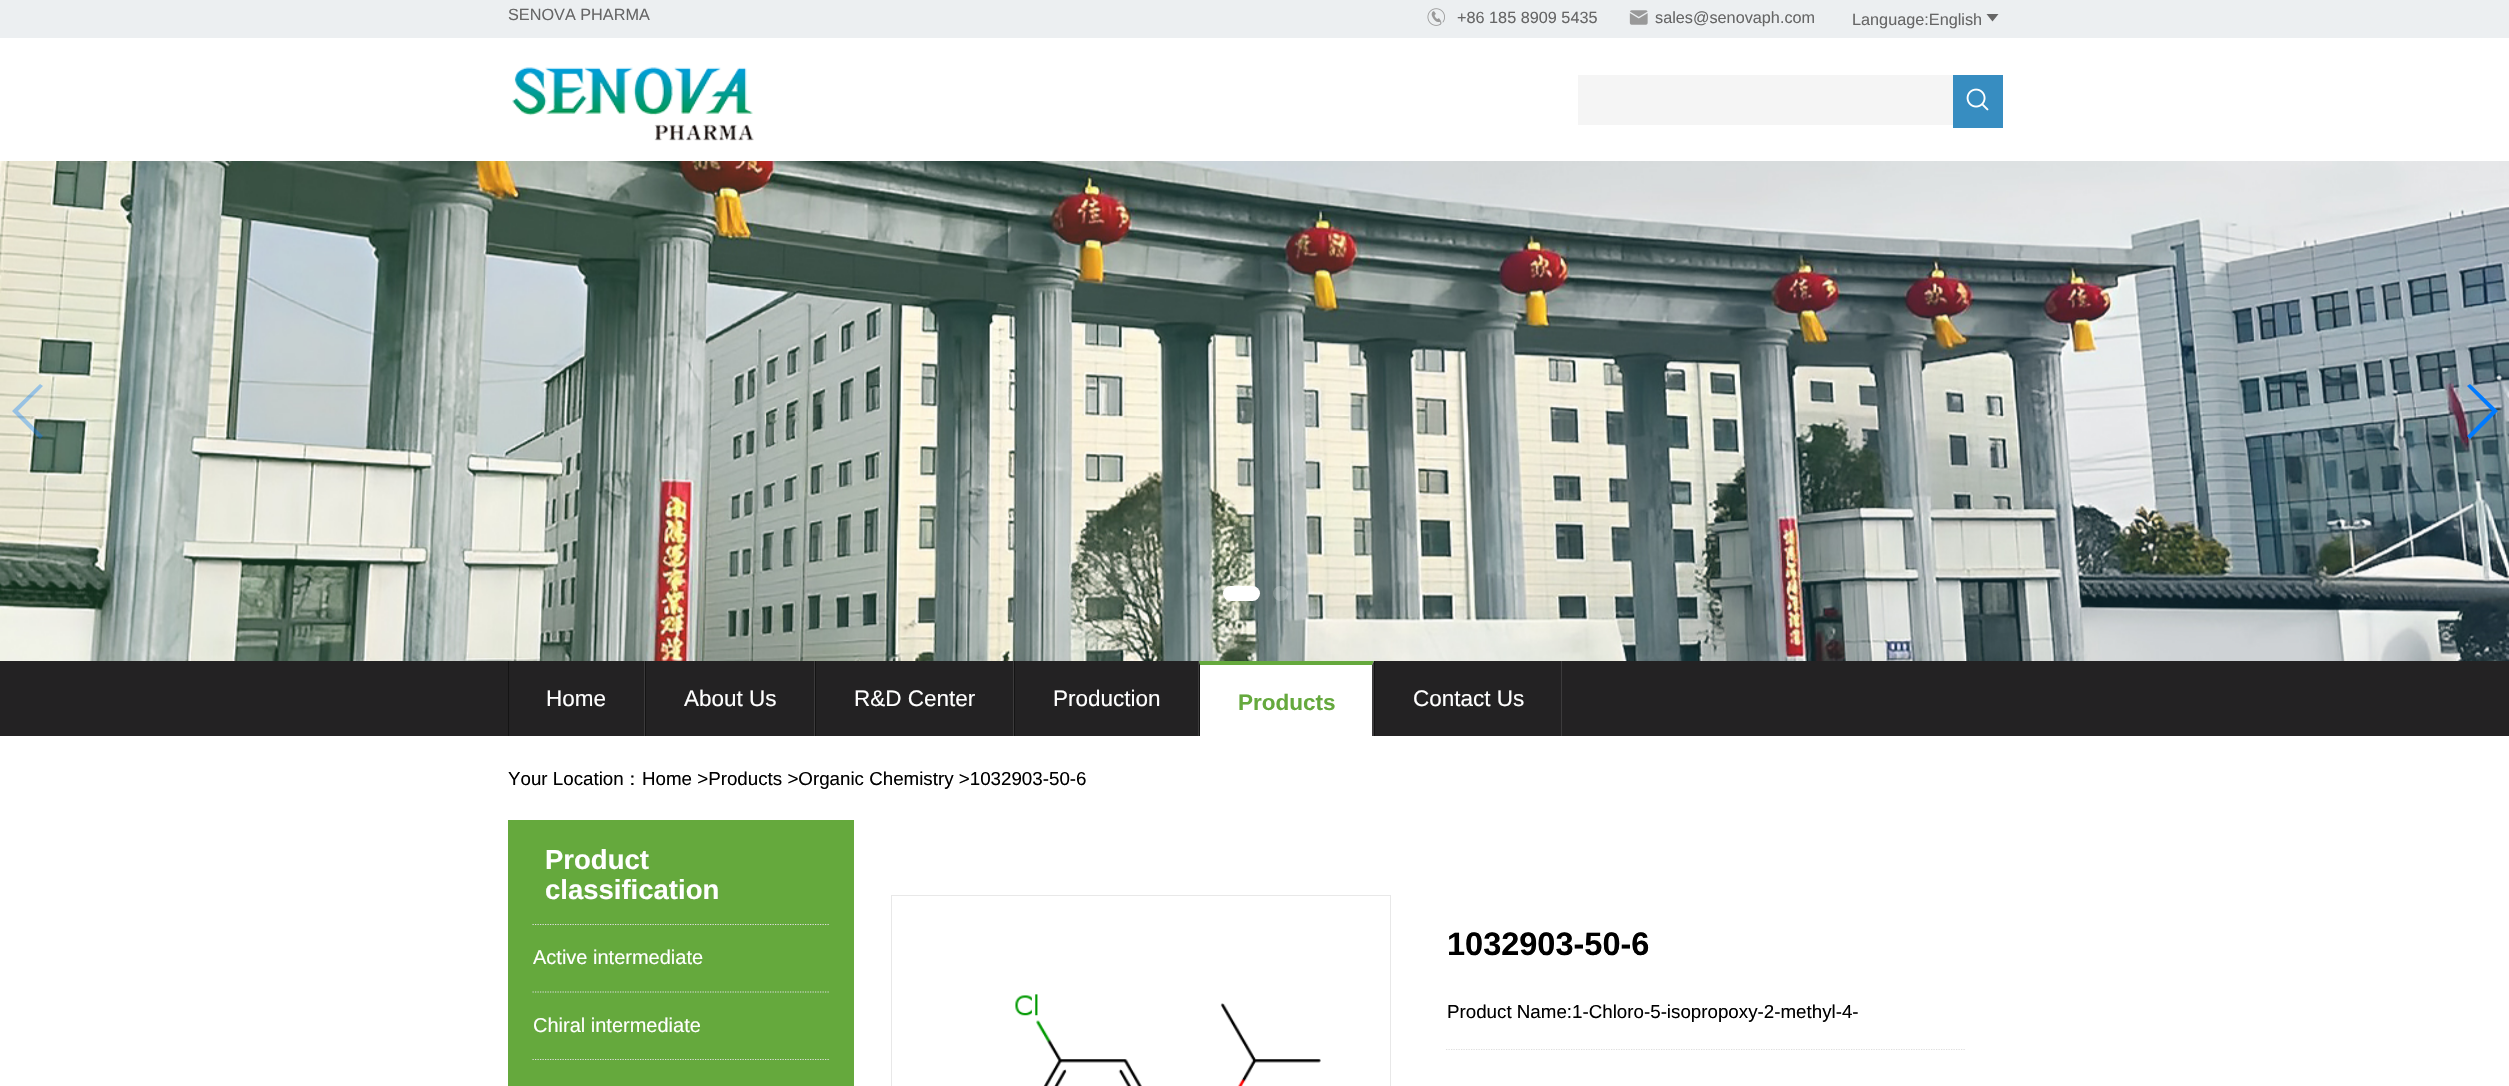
void draw(SkCanvas* canvas) {
    SkPaint paint;
    paint.setAntiAlias(true);
    auto face = [&](const char* family, int weight, float size, bool italic = false) {
        SkFontStyle style(weight, SkFontStyle::kNormal_Width,
            italic ? SkFontStyle::kItalic_Slant : SkFontStyle::kUpright_Slant);
        SkFont result(fontMgr->matchFamilyStyle(family, style), size);
        result.setSubpixel(true);
        return result;
    };
    auto write = [&](const char* s, float x, float y, const SkFont& font, SkColor color) {
        SkPaint ink(SkColor4f::FromColor(color));
        ink.setAntiAlias(true);
        canvas->drawString(s, x, y, font, ink);
    };
    auto block = [&](float x, float y, float w, float h, SkColor color) {
        SkPaint ink(SkColor4f::FromColor(color));
        ink.setAntiAlias(true);
        canvas->drawRect(SkRect::MakeXYWH(x, y, w, h), ink);
    };
    auto card = [&](float x, float y, float w, float h, float radius, SkColor color) {
        SkPaint ink(SkColor4f::FromColor(color));
        ink.setAntiAlias(true);
        canvas->drawRoundRect(SkRect::MakeXYWH(x, y, w, h), radius, radius, ink);
    };
    auto paste = [&](const char* path, float x, float y, float w, float h) {
        auto image = SkImages::DeferredFromEncodedData(SkData::MakeFromFileName(path));
        canvas->drawImageRect(image, SkRect::MakeXYWH(x, y, w, h), SkSamplingOptions());
    };
    canvas->clear(SK_ColorWHITE);
    block(0, 0, 2509, 38, SkColorSetRGB(236, 239, 241));
    auto kFont1 = face("Liberation Sans", 400, 16.25f);
    write("SENOVA PHARMA", 508, 20, kFont1, SkColorSetRGB(102, 102, 102));
    paste("pic1.png", 1427, 8, 18, 18);
    write("+86 185 8909 5435", 1457, 23, kFont1, SkColorSetRGB(102, 102, 102));
    paste("pic2.png", 1629, 10, 19, 15);
    write("sales@senovaph.com", 1655, 23, kFont1, SkColorSetRGB(102, 102, 102));
    write("Language:English", 1852, 25, kFont1, SkColorSetRGB(102, 102, 102));
    paint.setColor(SkColorSetRGB(102, 102, 102));
    canvas->drawPath(SkPathBuilder().moveTo(1986.5f, 14).lineTo(1998.5f, 14).lineTo(1992.5f, 21.5f).close().detach(), paint);
    paste("pic3.png", 512, 67, 242, 74);
    block(1578, 75, 375, 50, SkColorSetRGB(245, 245, 245));
    block(1953, 75, 50, 53, SkColorSetRGB(55, 141, 193));
    paste("pic4.png", 1966, 88, 23, 23);
    paste("pic5.png", 0, 161, 2509, 500);
    paint.setColor(SkColorSetARGB(89, 0, 122, 255));
    canvas->drawPath(SkPathBuilder().moveTo(12, 411).lineTo(40, 384).lineTo(43, 386).lineTo(18, 411).lineTo(43, 436).lineTo(40, 439).close().detach(), paint);
    paint.setColor(SkColorSetRGB(0, 122, 255));
    canvas->drawPath(SkPathBuilder().moveTo(2498, 411).lineTo(2470, 439).lineTo(2467, 436).lineTo(2492, 411).lineTo(2467, 386).lineTo(2470, 384).close().detach(), paint);
    card(1223, 586, 37, 15, 7.5f, SK_ColorWHITE);
    paint.setColor(SkColorSetARGB(51, 255, 255, 255));
    canvas->drawCircle(1280.5f, 593.5f, 7.5f, paint);
    block(0, 661, 2509, 75, SkColorSetRGB(35, 34, 35));
    block(644, 661, 1, 75, SkColorSetRGB(60, 59, 60));
    block(508, 661, 1, 75, SkColorSetRGB(20, 20, 20));
    auto kFont2 = face("Liberation Sans", 400, 22.5f);
    write("Home", 546, 706, kFont2, SK_ColorWHITE);
    block(814, 661, 1, 75, SkColorSetRGB(60, 59, 60));
    block(645, 661, 1, 75, SkColorSetRGB(20, 20, 20));
    write("About Us", 684, 706, kFont2, SK_ColorWHITE);
    block(1013, 661, 1, 75, SkColorSetRGB(60, 59, 60));
    block(815, 661, 1, 75, SkColorSetRGB(20, 20, 20));
    write("R&D Center", 854, 706, kFont2, SK_ColorWHITE);
    block(1198, 661, 1, 75, SkColorSetRGB(60, 59, 60));
    block(1014, 661, 1, 75, SkColorSetRGB(20, 20, 20));
    write("Production", 1053, 706, kFont2, SK_ColorWHITE);
    block(1199, 661, 175, 75, SK_ColorWHITE);
    paint.setColor(SkColorSetRGB(101, 169, 61));
    canvas->drawPath(SkPathBuilder().moveTo(1199, 661).lineTo(1374, 661).lineTo(1372, 665).lineTo(1200, 665).close().detach(), paint);
    canvas->save();
    canvas->clipRect(SkRect::MakeXYWH(0, 661, 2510, 75));
    paint.setColor(SkColorSetRGB(60, 59, 60));
    canvas->drawPath(SkPathBuilder().moveTo(1374, 661).lineTo(1374, 740).lineTo(1372, 740).lineTo(1372, 665).close().detach(), paint);
    paint.setColor(SkColorSetRGB(20, 20, 20));
    canvas->drawPath(SkPathBuilder().moveTo(1199, 740).lineTo(1199, 661).lineTo(1200, 665).lineTo(1200, 740).close().detach(), paint);
    canvas->restore();
    auto kFont3 = face("Liberation Sans", 700, 22.5f);
    write("Products", 1238, 710, kFont3, SkColorSetRGB(101, 169, 61));
    block(1561, 661, 1, 75, SkColorSetRGB(60, 59, 60));
    block(1374, 661, 1, 75, SkColorSetRGB(20, 20, 20));
    write("Contact Us", 1413, 706, kFont2, SK_ColorWHITE);
    auto kFont4 = face("Liberation Sans", 400, 18.75f);
    write("Your Location", 508, 785, kFont4, SK_ColorBLACK);
    auto kFont5 = face("WenQuanYi Zen Hei", 500, 18.75f);
    write("：", 623, 785, kFont5, SK_ColorBLACK);
    write("Home >Products >Organic Chemistry >1032903-50-6", 642, 785, kFont4, SK_ColorBLACK);
    block(508, 820, 346, 266, SkColorSetRGB(101, 169, 61));
    auto kFont6 = face("Liberation Sans", 700, 27.5f);
    write("Product", 545, 869, kFont6, SK_ColorWHITE);
    write("classification", 545, 899, kFont6, SK_ColorWHITE);
    paint.setStyle(SkPaint::kStroke_Style);
    paint.setStrokeWidth(1.2f);
    paint.setColor(SkColorSetRGB(222, 222, 222));
    paint.setPathEffect(SkDashPathEffect::Make({{1.25f, 1.25f}}, 0));
    canvas->drawPath(SkPathBuilder().moveTo(532.5f, 924.5f).lineTo(829, 924.5f).detach(), paint);
    paint.setPathEffect(nullptr);
    auto kFont7 = face("Liberation Sans", 400, 20);
    write("Active intermediate", 533, 964, kFont7, SK_ColorWHITE);
    paint.setPathEffect(SkDashPathEffect::Make({{1.25f, 1.25f}}, 0));
    canvas->drawPath(SkPathBuilder().moveTo(532.5f, 992).lineTo(829, 992).detach(), paint);
    paint.setPathEffect(nullptr);
    write("Chiral intermediate", 533, 1032, kFont7, SK_ColorWHITE);
    paint.setPathEffect(SkDashPathEffect::Make({{1.25f, 1.25f}}, 0));
    canvas->drawPath(SkPathBuilder().moveTo(532.5f, 1059.5f).lineTo(829, 1059.5f).detach(), paint);
    paint.setPathEffect(nullptr);
    paint.setStrokeWidth(1);
    paint.setColor(SkColorSetRGB(232, 232, 232));
    canvas->drawRect(SkRect::MakeXYWH(891.5f, 895.5f, 499, 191), paint);
    paste("pic6.png", 1015, 994, 306, 92);
    auto kFont8 = face("Liberation Sans", 700, 32.5f);
    write("1032903-50-6", 1447, 955, kFont8, SK_ColorBLACK);
    paint.setStrokeWidth(1.2f);
    paint.setColor(SkColorSetRGB(222, 222, 222));
    paint.setPathEffect(SkDashPathEffect::Make({{1.25f, 1.25f}}, 0));
    canvas->drawPath(SkPathBuilder().moveTo(1446, 1049.5f).lineTo(1965, 1049.5f).detach(), paint);
    paint.setPathEffect(nullptr);
    write("Product Name:1-Chloro-5-isopropoxy-2-methyl-4-", 1447, 1018, kFont4, SK_ColorBLACK);
}
